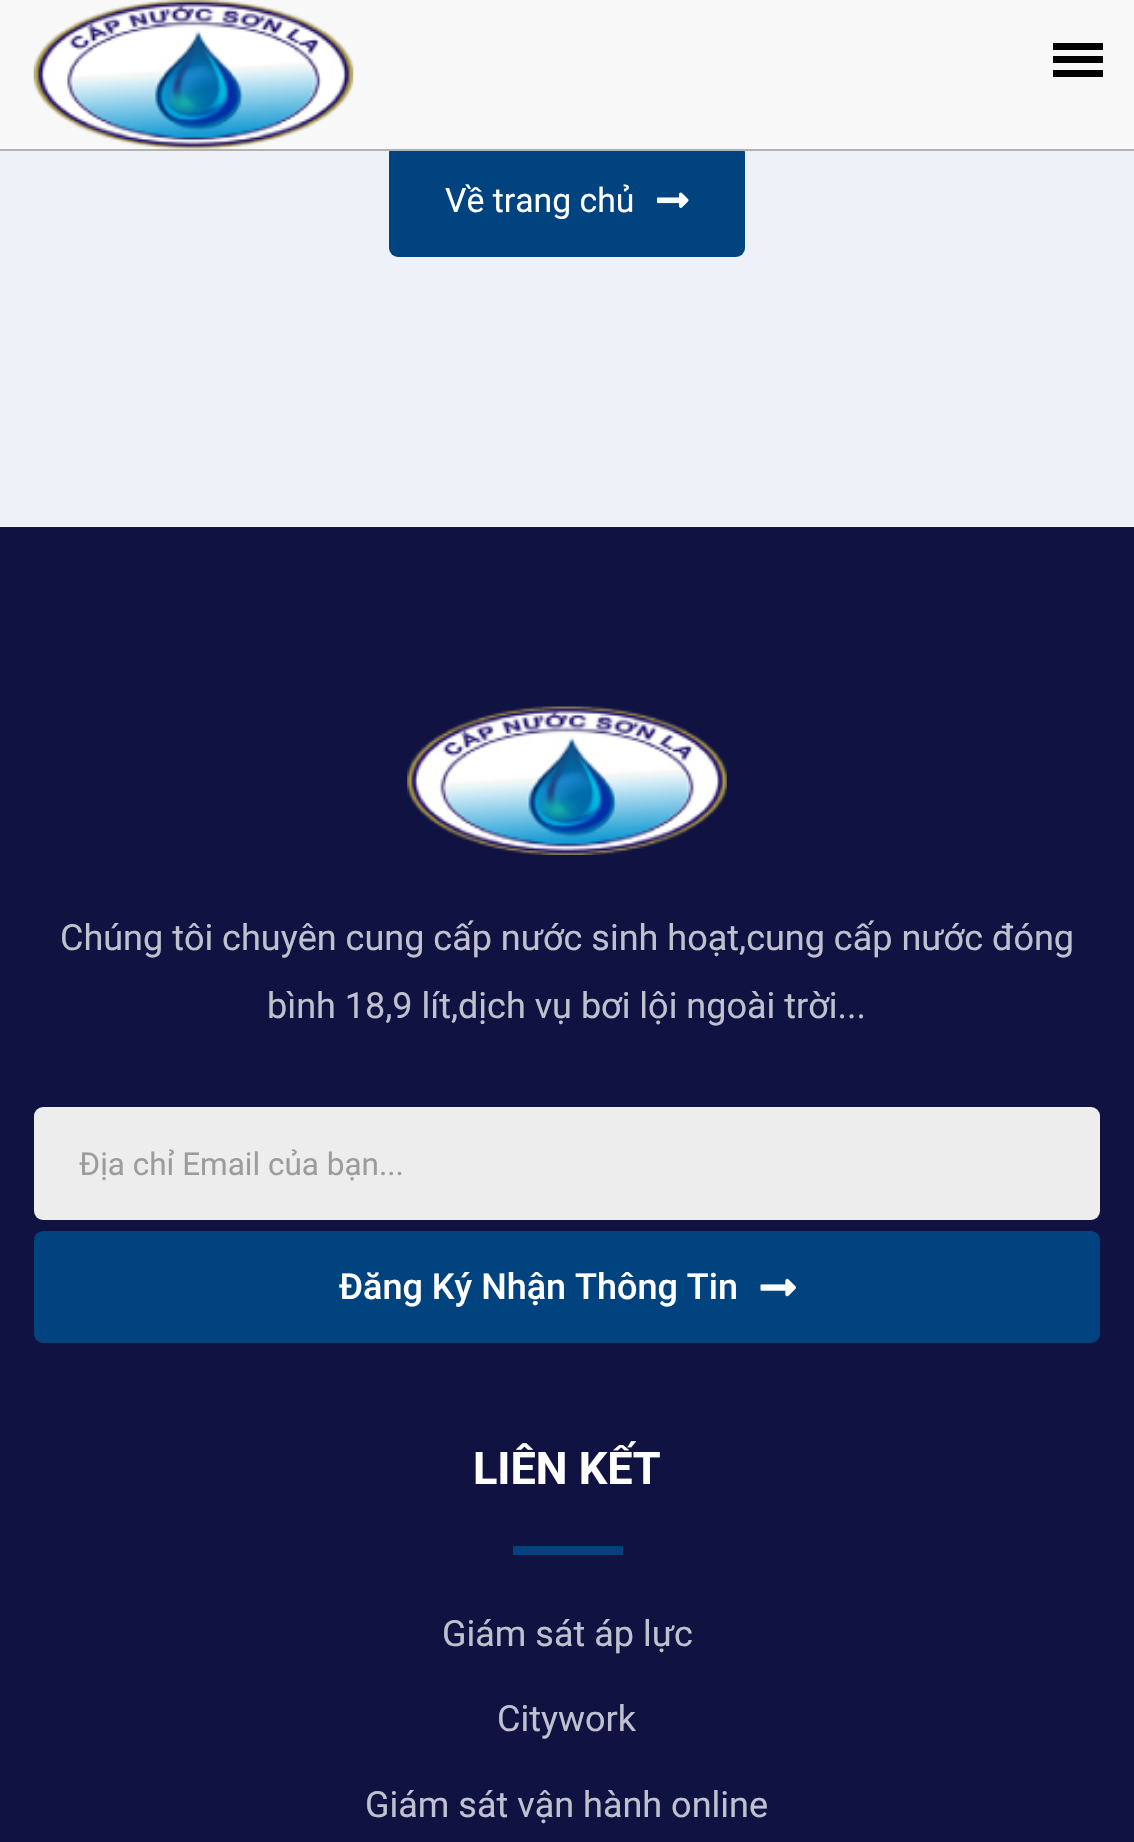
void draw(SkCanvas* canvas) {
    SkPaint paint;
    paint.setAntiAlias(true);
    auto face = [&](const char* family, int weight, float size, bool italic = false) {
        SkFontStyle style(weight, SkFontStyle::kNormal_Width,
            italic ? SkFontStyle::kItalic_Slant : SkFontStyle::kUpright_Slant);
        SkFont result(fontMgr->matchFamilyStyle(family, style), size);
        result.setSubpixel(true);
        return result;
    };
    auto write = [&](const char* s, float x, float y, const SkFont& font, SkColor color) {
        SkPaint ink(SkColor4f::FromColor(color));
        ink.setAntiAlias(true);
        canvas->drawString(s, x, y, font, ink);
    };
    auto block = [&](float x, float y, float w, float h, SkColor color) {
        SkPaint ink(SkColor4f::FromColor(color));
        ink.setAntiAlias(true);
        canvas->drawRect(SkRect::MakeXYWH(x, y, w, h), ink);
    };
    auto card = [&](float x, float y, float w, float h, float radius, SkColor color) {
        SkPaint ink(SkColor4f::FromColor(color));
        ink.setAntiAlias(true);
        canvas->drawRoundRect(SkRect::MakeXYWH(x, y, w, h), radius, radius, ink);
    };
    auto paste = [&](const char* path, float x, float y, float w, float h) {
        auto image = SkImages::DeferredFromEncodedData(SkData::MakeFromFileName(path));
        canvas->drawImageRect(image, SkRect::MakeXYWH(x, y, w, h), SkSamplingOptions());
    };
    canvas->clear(SK_ColorWHITE);
    paste("pic2.png", 0, 151, 1134, 376);
    card(389, 144, 356, 113, 9, SkColorSetRGB(1, 67, 127));
    block(0, 149, 1134, 2, SkColorSetRGB(178, 178, 178));
    block(0, 0, 1134, 149, SkColorSetRGB(248, 248, 248));
    paste("pic1.png", 33, 0, 321, 149);
    block(1053, 43, 50, 7, SK_ColorBLACK);
    block(1053, 56, 50, 7, SK_ColorBLACK);
    block(1053, 70, 50, 7, SK_ColorBLACK);
    auto kFont1 = face("Roboto", 400, 33.75f);
    write("Về trang chủ", 445, 212, kFont1, SK_ColorWHITE);
    paste("pic3.png", 657, 192, 32, 16);
    block(0, 527, 1134, 1315, SkColorSetRGB(16, 18, 66));
    paste("pic4.png", 407, 706, 320, 149);
    auto kFont2 = face("Roboto", 400, 36);
    write("Chúng tôi chuyên cung cấp nước sinh hoạt,cung cấp nước đóng", 60, 950, kFont2, SkColorSetRGB(192, 193, 206));
    write("bình 18,9 lít,dịch vụ bơi lội ngoài trời...", 267, 1018, kFont2, SkColorSetRGB(192, 193, 206));
    card(34, 1107, 1066, 113, 9, SkColorSetRGB(237, 237, 237));
    auto kFont3 = face("Roboto", 400, 31.5f);
    write("Địa chỉ Email của bạn...", 79, 1175, kFont3, SkColorSetRGB(155, 156, 156));
    card(34, 1231, 1066, 112, 9, SkColorSetRGB(1, 67, 127));
    auto kFont4 = face("Roboto", 500, 36);
    write("Đăng Ký Nhận Thông Tin", 339, 1299, kFont4, SK_ColorWHITE);
    paste("pic5.png", 760, 1278, 36, 19);
    auto kFont5 = face("Roboto", 700, 45);
    write("LIÊN KẾT", 473, 1484, kFont5, SK_ColorWHITE);
    block(513, 1546, 110, 9, SkColorSetRGB(1, 67, 127));
    write("Giám sát áp lực", 442, 1646, kFont2, SkColorSetRGB(192, 193, 206));
    write("Citywork", 497, 1731, kFont2, SkColorSetRGB(192, 193, 206));
    write("Giám sát vận hành online", 365, 1817, kFont2, SkColorSetRGB(192, 193, 206));
}
